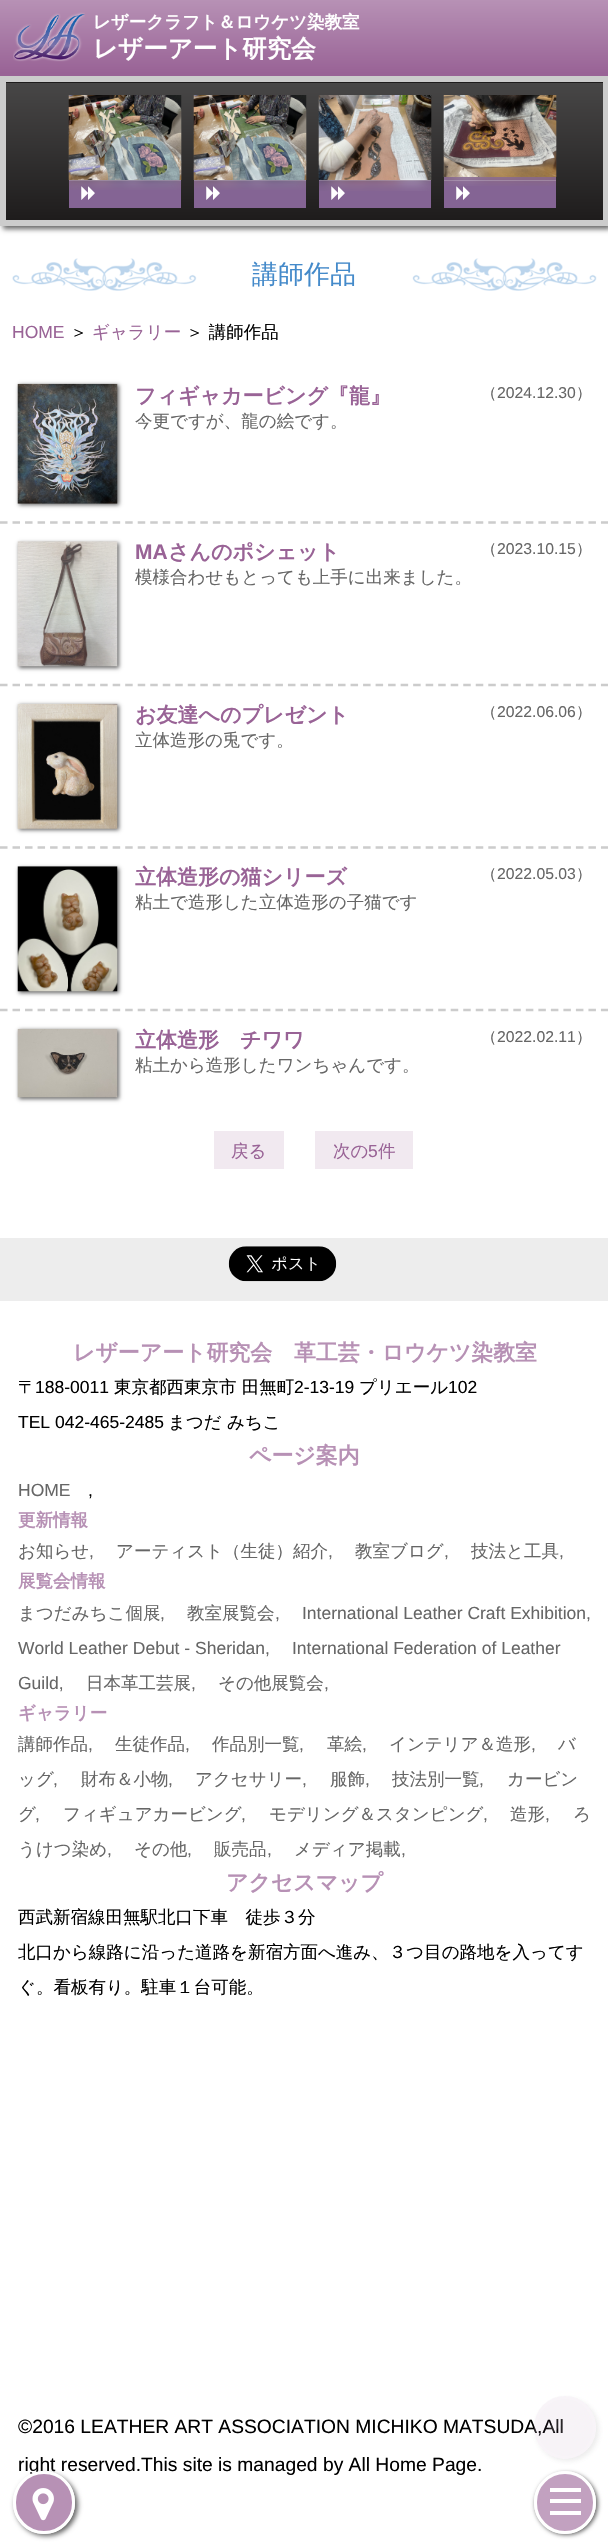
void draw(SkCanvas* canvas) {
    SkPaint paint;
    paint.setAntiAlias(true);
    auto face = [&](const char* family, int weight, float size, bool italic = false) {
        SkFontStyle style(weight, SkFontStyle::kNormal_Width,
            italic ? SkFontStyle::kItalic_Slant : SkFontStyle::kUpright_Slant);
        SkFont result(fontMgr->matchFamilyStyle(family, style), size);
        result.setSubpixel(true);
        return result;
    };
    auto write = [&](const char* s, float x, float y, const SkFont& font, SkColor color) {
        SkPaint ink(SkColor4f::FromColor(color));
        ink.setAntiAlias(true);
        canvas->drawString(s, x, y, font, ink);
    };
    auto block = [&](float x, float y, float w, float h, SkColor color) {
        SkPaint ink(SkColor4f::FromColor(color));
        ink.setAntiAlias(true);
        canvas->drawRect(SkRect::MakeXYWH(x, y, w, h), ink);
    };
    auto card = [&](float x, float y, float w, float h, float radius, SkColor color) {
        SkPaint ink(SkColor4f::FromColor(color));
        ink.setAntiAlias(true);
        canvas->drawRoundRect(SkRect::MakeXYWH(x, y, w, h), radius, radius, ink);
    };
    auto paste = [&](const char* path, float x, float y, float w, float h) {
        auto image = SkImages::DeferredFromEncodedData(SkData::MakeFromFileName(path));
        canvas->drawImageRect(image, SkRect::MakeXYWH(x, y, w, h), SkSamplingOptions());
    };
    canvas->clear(SK_ColorWHITE);
    {
        const SkColor colors[] = {SkColorSetRGB(183, 145, 181), SkColorSetRGB(153, 99, 150)};
        const float stops[] = {0, 1};
        const SkPoint ends[] = {{304, 0}, {304, 73}};
        paint.setShader(SkGradientShader::MakeLinear(ends, colors, stops, 2, SkTileMode::kClamp));
        paint.setAlpha(255);
    }
    canvas->drawRect(SkRect::MakeXYWH(0, 0, 608, 73), paint);
    block(0, 73, 608, 3, SkColorSetRGB(153, 99, 150));
    paste("pic1.png", 13, 12, 72, 50);
    auto kFont1 = face("WenQuanYi Zen Hei", 700, 17.5f);
    write("レザークラフト＆ロウケツ染教室", 93, 28, kFont1, SK_ColorWHITE);
    auto kFont2 = face("WenQuanYi Zen Hei", 700, 24.5f);
    write("レザーアート研究会", 93, 57, kFont2, SK_ColorWHITE);
    canvas->save();
    canvas->clipRect(SkRect::MakeXYWH(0, 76, 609, 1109));
    paint.setShader(nullptr);
    paint.setColor(SkColorSetRGB(102, 102, 102));
    paint.setMaskFilter(SkMaskFilter::MakeBlur(kNormal_SkBlurStyle, 2.5f));
    canvas->drawRect(SkRect::MakeXYWH(3, 79, 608, 150), paint);
    paint.setMaskFilter(nullptr);
    canvas->restore();
    {
        const SkColor colors[] = {SkColorSetRGB(72, 71, 71), SkColorSetRGB(30, 28, 28)};
        const float stops[] = {0, 1};
        const SkPoint ends[] = {{304, -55}, {304, 83}};
        paint.setShader(SkGradientShader::MakeLinear(ends, colors, stops, 2, SkTileMode::kClamp));
        paint.setAlpha(255);
    }
    canvas->drawRect(SkRect::MakeXYWH(0, 82, 608, 1), paint);
    {
        const SkColor colors[] = {SkColorSetRGB(72, 71, 71), SkColorSetRGB(30, 28, 28)};
        const float stops[] = {0, 1};
        const SkPoint ends[] = {{304, 82}, {304, 220}};
        paint.setShader(SkGradientShader::MakeLinear(ends, colors, stops, 2, SkTileMode::kClamp));
        paint.setAlpha(255);
    }
    canvas->drawRect(SkRect::MakeXYWH(6, 83, 597, 137), paint);
    paint.setStyle(SkPaint::kStroke_Style);
    paint.setStrokeWidth(6);
    paint.setShader(nullptr);
    paint.setColor(SkColorSetRGB(204, 204, 204));
    canvas->drawRect(SkRect::MakeXYWH(3, 79, 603, 144), paint);
    block(69, 180, 112, 28, SkColorSetRGB(132, 100, 148));
    paste("pic3.png", 68, 95, 114, 95);
    block(69, 180, 112, 1, SkColorSetARGB(51, 255, 255, 255));
    canvas->save();
    canvas->clipRect(SkRect::MakeXYWH(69, 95, 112, 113));
    paint.setStyle(SkPaint::kFill_Style);
    paint.setColor(SkColorSetARGB(26, 0, 0, 0));
    paint.setMaskFilter(SkMaskFilter::MakeBlur(kNormal_SkBlurStyle, 3));
    canvas->drawRect(SkRect::MakeXYWH(69, 96, 112, 85), paint);
    paint.setMaskFilter(nullptr);
    canvas->restore();
    paste("pic2.png", 68, 95, 114, 85);
    paste("pic4.png", 81, 186, 14, 14);
    block(194, 180, 112, 28, SkColorSetRGB(132, 100, 148));
    paste("pic3.png", 193, 95, 114, 95);
    block(194, 180, 112, 1, SkColorSetARGB(51, 255, 255, 255));
    canvas->save();
    canvas->clipRect(SkRect::MakeXYWH(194, 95, 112, 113));
    paint.setMaskFilter(SkMaskFilter::MakeBlur(kNormal_SkBlurStyle, 3));
    canvas->drawRect(SkRect::MakeXYWH(194, 96, 112, 85), paint);
    paint.setMaskFilter(nullptr);
    canvas->restore();
    paste("pic2.png", 193, 95, 114, 85);
    paste("pic4.png", 206, 186, 14, 14);
    block(319, 180, 112, 28, SkColorSetRGB(132, 100, 148));
    paste("pic6.png", 318, 95, 114, 96);
    block(319, 180, 112, 1, SkColorSetARGB(51, 255, 255, 255));
    canvas->save();
    canvas->clipRect(SkRect::MakeXYWH(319, 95, 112, 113));
    paint.setMaskFilter(SkMaskFilter::MakeBlur(kNormal_SkBlurStyle, 3));
    canvas->drawRect(SkRect::MakeXYWH(319, 96, 112, 85), paint);
    paint.setMaskFilter(nullptr);
    canvas->restore();
    paste("pic5.png", 318, 95, 114, 85);
    paste("pic7.png", 331, 186, 14, 14);
    block(444, 177, 112, 31, SkColorSetRGB(132, 100, 148));
    paste("pic8.png", 443, 95, 114, 91);
    block(444, 180, 112, 1, SkColorSetARGB(51, 255, 255, 255));
    paste("pic9.png", 443, 95, 114, 82);
    paste("pic10.png", 456, 186, 14, 14);
    paste("pic11.png", 12, 258, 585, 33);
    auto kFont3 = face("WenQuanYi Zen Hei", 500, 26);
    write("講師作品", 252, 283, kFont3, SkColorSetRGB(68, 138, 202));
    auto kFont4 = face("Liberation Sans", 400, 17.5f);
    write("HOME", 12, 338, kFont4, SkColorSetRGB(153, 99, 150));
    auto kFont5 = face("WenQuanYi Zen Hei", 500, 17.5f);
    write("＞", 70, 338, kFont5, SK_ColorBLACK);
    write("ギャラリー", 92, 338, kFont5, SkColorSetRGB(153, 99, 150));
    write("＞ 講師作品", 186, 338, kFont5, SK_ColorBLACK);
    paint.setColor(SkColorSetRGB(102, 102, 102));
    paint.setMaskFilter(SkMaskFilter::MakeBlur(kNormal_SkBlurStyle, 2));
    canvas->drawRect(SkRect::MakeXYWH(19, 385, 100, 120), paint);
    paint.setMaskFilter(nullptr);
    paste("pic12.png", 17, 383, 101, 121);
    auto kFont6 = face("WenQuanYi Zen Hei", 700, 21);
    write("フィギャカービング『龍』", 135, 403, kFont6, SkColorSetRGB(153, 99, 150));
    auto kFont7 = face("WenQuanYi Zen Hei", 500, 15.75f);
    write("（", 481, 398, kFont7, SkColorSetRGB(102, 102, 102));
    auto kFont8 = face("Liberation Sans", 400, 15.75f);
    write("2024.12.30", 497, 398, kFont8, SkColorSetRGB(102, 102, 102));
    write("）", 576, 398, kFont7, SkColorSetRGB(102, 102, 102));
    write("今更ですが、龍の絵です。", 135, 427, kFont5, SkColorSetRGB(102, 102, 102));
    paint.setStyle(SkPaint::kStroke_Style);
    paint.setStrokeWidth(2.5f);
    paint.setColor(SkColorSetRGB(204, 204, 204));
    paint.setPathEffect(SkDashPathEffect::Make({{7.5f, 5.02f}}, 0));
    canvas->drawPath(SkPathBuilder().moveTo(0, 522.5f).lineTo(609, 522.5f).detach(), paint);
    paint.setPathEffect(nullptr);
    paint.setStyle(SkPaint::kFill_Style);
    paint.setColor(SkColorSetRGB(102, 102, 102));
    paint.setMaskFilter(SkMaskFilter::MakeBlur(kNormal_SkBlurStyle, 2));
    canvas->drawRect(SkRect::MakeXYWH(19, 543, 100, 125), paint);
    paint.setMaskFilter(nullptr);
    paste("pic13.png", 17, 541, 101, 126);
    auto kFont9 = face("Liberation Sans", 700, 21);
    write("MA", 135, 559, kFont9, SkColorSetRGB(153, 99, 150));
    write("さんのポシェット", 168, 559, kFont6, SkColorSetRGB(153, 99, 150));
    write("（", 481, 554, kFont7, SkColorSetRGB(102, 102, 102));
    write("2023.10.15", 497, 554, kFont8, SkColorSetRGB(102, 102, 102));
    write("）", 576, 554, kFont7, SkColorSetRGB(102, 102, 102));
    write("模様合わせもとっても上手に出来ました。", 135, 583, kFont5, SkColorSetRGB(102, 102, 102));
    paint.setStyle(SkPaint::kStroke_Style);
    paint.setColor(SkColorSetRGB(204, 204, 204));
    paint.setPathEffect(SkDashPathEffect::Make({{7.5f, 5.02f}}, 0));
    canvas->drawPath(SkPathBuilder().moveTo(0, 685).lineTo(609, 685).detach(), paint);
    paint.setPathEffect(nullptr);
    paint.setStyle(SkPaint::kFill_Style);
    paint.setColor(SkColorSetRGB(102, 102, 102));
    paint.setMaskFilter(SkMaskFilter::MakeBlur(kNormal_SkBlurStyle, 2));
    canvas->drawRect(SkRect::MakeXYWH(19, 705, 100, 125), paint);
    paint.setMaskFilter(nullptr);
    paste("pic14.png", 17, 703, 101, 126);
    write("お友達へのプレゼント", 135, 722, kFont6, SkColorSetRGB(153, 99, 150));
    write("（", 481, 717, kFont7, SkColorSetRGB(102, 102, 102));
    write("2022.06.06", 497, 717, kFont8, SkColorSetRGB(102, 102, 102));
    write("）", 576, 717, kFont7, SkColorSetRGB(102, 102, 102));
    write("立体造形の兎です。", 135, 746, kFont5, SkColorSetRGB(102, 102, 102));
    paint.setStyle(SkPaint::kStroke_Style);
    paint.setColor(SkColorSetRGB(204, 204, 204));
    paint.setPathEffect(SkDashPathEffect::Make({{7.5f, 5.02f}}, 0));
    canvas->drawPath(SkPathBuilder().moveTo(0, 847.5f).lineTo(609, 847.5f).detach(), paint);
    paint.setPathEffect(nullptr);
    paint.setStyle(SkPaint::kFill_Style);
    paint.setColor(SkColorSetRGB(102, 102, 102));
    paint.setMaskFilter(SkMaskFilter::MakeBlur(kNormal_SkBlurStyle, 2));
    canvas->drawRect(SkRect::MakeXYWH(19, 868, 100, 125), paint);
    paint.setMaskFilter(nullptr);
    paste("pic15.png", 17, 866, 101, 126);
    write("立体造形の猫シリーズ", 135, 884, kFont6, SkColorSetRGB(153, 99, 150));
    write("（", 481, 879, kFont7, SkColorSetRGB(102, 102, 102));
    write("2022.05.03", 497, 879, kFont8, SkColorSetRGB(102, 102, 102));
    write("）", 576, 879, kFont7, SkColorSetRGB(102, 102, 102));
    write("粘土で造形した立体造形の子猫です", 135, 908, kFont5, SkColorSetRGB(102, 102, 102));
    paint.setStyle(SkPaint::kStroke_Style);
    paint.setColor(SkColorSetRGB(204, 204, 204));
    paint.setPathEffect(SkDashPathEffect::Make({{7.5f, 5.02f}}, 0));
    canvas->drawPath(SkPathBuilder().moveTo(0, 1010).lineTo(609, 1010).detach(), paint);
    paint.setPathEffect(nullptr);
    paint.setStyle(SkPaint::kFill_Style);
    paint.setColor(SkColorSetRGB(102, 102, 102));
    paint.setMaskFilter(SkMaskFilter::MakeBlur(kNormal_SkBlurStyle, 2));
    canvas->drawRect(SkRect::MakeXYWH(19, 1030, 100, 69), paint);
    paint.setMaskFilter(nullptr);
    paste("pic16.png", 17, 1028, 101, 70);
    write("立体造形　チワワ", 135, 1047, kFont6, SkColorSetRGB(153, 99, 150));
    write("（", 481, 1042, kFont7, SkColorSetRGB(102, 102, 102));
    write("2022.02.11", 497, 1042, kFont8, SkColorSetRGB(102, 102, 102));
    write("）", 576, 1042, kFont7, SkColorSetRGB(102, 102, 102));
    write("粘土から造形したワンちゃんです。", 135, 1071, kFont5, SkColorSetRGB(102, 102, 102));
    block(214, 1131, 70, 38, SkColorSetRGB(241, 233, 240));
    write("戻る", 231, 1157, kFont5, SkColorSetRGB(153, 99, 150));
    block(315, 1131, 98, 38, SkColorSetRGB(241, 233, 240));
    write("次の", 333, 1157, kFont5, SkColorSetRGB(153, 99, 150));
    write("5", 368, 1157, kFont4, SkColorSetRGB(153, 99, 150));
    write("件", 378, 1157, kFont5, SkColorSetRGB(153, 99, 150));
    canvas->save();
    canvas->clipPath(SkPathBuilder(SkPathFillType::kEvenOdd).moveTo(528, 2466).lineTo(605, 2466).lineTo(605, 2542).lineTo(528, 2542).close().moveTo(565, 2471).cubicTo(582, 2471, 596, 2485, 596, 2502).lineTo(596, 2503).cubicTo(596, 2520, 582, 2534, 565, 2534).cubicTo(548, 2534, 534, 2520, 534, 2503).lineTo(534, 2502).cubicTo(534, 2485, 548, 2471, 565, 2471).close().detach(), true);
    paint.setMaskFilter(SkMaskFilter::MakeBlur(kNormal_SkBlurStyle, 2));
    canvas->drawRoundRect(SkRect::MakeXYWH(535, 2473, 63, 62), 31, 31, paint);
    paint.setMaskFilter(nullptr);
    canvas->restore();
    paint.setColor(SkColorSetARGB(153, 153, 99, 150));
    canvas->drawRoundRect(SkRect::MakeXYWH(535.5f, 2472.5f, 59, 60), 29.5f, 29.5f, paint);
    paint.setStyle(SkPaint::kStroke_Style);
    paint.setStrokeWidth(3);
    paint.setColor(SK_ColorWHITE);
    canvas->drawRoundRect(SkRect::MakeXYWH(535.5f, 2472.5f, 59, 60), 29.5f, 29.5f, paint);
    block(550, 2499, 31, 4, SK_ColorWHITE);
    block(550, 2488, 31, 4, SK_ColorWHITE);
    block(550, 2511, 31, 4, SK_ColorWHITE);
    block(0, 1238, 608, 63, SkColorSetRGB(237, 237, 237));
    paste("pic17.png", 228, 1246, 109, 36);
    auto kFont10 = face("WenQuanYi Zen Hei", 700, 21.9f);
    write("レザーアート研究会　革工芸・ロウケツ染教室", 73, 1360, kFont10, SkColorSetRGB(183, 145, 181));
    write("〒", 18, 1393, kFont5, SK_ColorBLACK);
    write("188-0011", 35, 1393, kFont4, SK_ColorBLACK);
    write("東京都西東京市 田無町", 114, 1393, kFont5, SK_ColorBLACK);
    write("2-13-19", 294, 1393, kFont4, SK_ColorBLACK);
    write("プリエール", 359, 1393, kFont5, SK_ColorBLACK);
    write("102", 448, 1393, kFont4, SK_ColorBLACK);
    write("TEL 042-465-2485", 18, 1428, kFont4, SK_ColorBLACK);
    write("まつだ みちこ", 168, 1428, kFont5, SK_ColorBLACK);
    write("ページ案内", 249, 1463, kFont10, SkColorSetRGB(183, 145, 181));
    write("HOME", 18, 1496, kFont4, SkColorSetRGB(102, 102, 102));
    write(",", 88, 1496, kFont4, SK_ColorBLACK);
    write("更新情報", 18, 1526, kFont1, SkColorSetRGB(183, 145, 181));
    write("お知らせ", 18, 1557, kFont5, SkColorSetRGB(102, 102, 102));
    write(",", 89, 1557, kFont4, SkColorSetRGB(102, 102, 102));
    write("アーティスト（生徒）紹介", 116, 1557, kFont5, SkColorSetRGB(102, 102, 102));
    write(",", 328, 1557, kFont4, SkColorSetRGB(102, 102, 102));
    write("教室ブログ", 355, 1557, kFont5, SkColorSetRGB(102, 102, 102));
    write(",", 444, 1557, kFont4, SkColorSetRGB(102, 102, 102));
    write("技法と工具", 471, 1557, kFont5, SkColorSetRGB(102, 102, 102));
    write(",", 559, 1557, kFont4, SkColorSetRGB(102, 102, 102));
    write("展覧会情報", 18, 1587, kFont1, SkColorSetRGB(183, 145, 181));
    write("まつだみちこ個展", 18, 1619, kFont5, SkColorSetRGB(102, 102, 102));
    write(",", 160, 1619, kFont4, SkColorSetRGB(102, 102, 102));
    write("教室展覧会", 187, 1619, kFont5, SkColorSetRGB(102, 102, 102));
    write(",", 275, 1619, kFont4, SkColorSetRGB(102, 102, 102));
    write("International Leather Craft Exhibition,", 302, 1619, kFont4, SkColorSetRGB(102, 102, 102));
    write("World Leather Debut - Sheridan,", 18, 1654, kFont4, SkColorSetRGB(102, 102, 102));
    write("International Federation of Leather", 292, 1654, kFont4, SkColorSetRGB(102, 102, 102));
    write("Guild,", 18, 1689, kFont4, SkColorSetRGB(102, 102, 102));
    write("日本革工芸展", 86, 1689, kFont5, SkColorSetRGB(102, 102, 102));
    write(",", 191, 1689, kFont4, SkColorSetRGB(102, 102, 102));
    write("その他展覧会", 218, 1689, kFont5, SkColorSetRGB(102, 102, 102));
    write(",", 324, 1689, kFont4, SkColorSetRGB(102, 102, 102));
    write("ギャラリー", 18, 1719, kFont1, SkColorSetRGB(183, 145, 181));
    write("講師作品", 18, 1750, kFont5, SkColorSetRGB(102, 102, 102));
    write("生徒作品", 115, 1750, kFont5, SkColorSetRGB(102, 102, 102));
    write("作品別一覧", 212, 1750, kFont5, SkColorSetRGB(102, 102, 102));
    write("革絵", 327, 1750, kFont5, SkColorSetRGB(102, 102, 102));
    write("インテリア＆造形", 389, 1750, kFont5, SkColorSetRGB(102, 102, 102));
    write("バ", 558, 1750, kFont5, SkColorSetRGB(102, 102, 102));
    write(",", 88, 1750, kFont4, SkColorSetRGB(102, 102, 102));
    write(",", 185, 1750, kFont4, SkColorSetRGB(102, 102, 102));
    write(",", 299, 1750, kFont4, SkColorSetRGB(102, 102, 102));
    write(",", 362, 1750, kFont4, SkColorSetRGB(102, 102, 102));
    write(",", 531, 1750, kFont4, SkColorSetRGB(102, 102, 102));
    write("ッグ", 18, 1785, kFont5, SkColorSetRGB(102, 102, 102));
    write(",", 53, 1785, kFont4, SkColorSetRGB(102, 102, 102));
    write("財布＆小物", 81, 1785, kFont5, SkColorSetRGB(102, 102, 102));
    write(",", 168, 1785, kFont4, SkColorSetRGB(102, 102, 102));
    write("アクセサリー", 195, 1785, kFont5, SkColorSetRGB(102, 102, 102));
    write(",", 302, 1785, kFont4, SkColorSetRGB(102, 102, 102));
    write("服飾", 330, 1785, kFont5, SkColorSetRGB(102, 102, 102));
    write(",", 365, 1785, kFont4, SkColorSetRGB(102, 102, 102));
    write("技法別一覧", 392, 1785, kFont5, SkColorSetRGB(102, 102, 102));
    write(",", 479, 1785, kFont4, SkColorSetRGB(102, 102, 102));
    write("カービン", 507, 1785, kFont5, SkColorSetRGB(102, 102, 102));
    write("グ", 18, 1820, kFont5, SkColorSetRGB(102, 102, 102));
    write(",", 35, 1820, kFont4, SkColorSetRGB(102, 102, 102));
    write("フィギュアカービング", 63, 1820, kFont5, SkColorSetRGB(102, 102, 102));
    write(",", 241, 1820, kFont4, SkColorSetRGB(102, 102, 102));
    write("モデリング＆スタンピング", 269, 1820, kFont5, SkColorSetRGB(102, 102, 102));
    write(",", 483, 1820, kFont4, SkColorSetRGB(102, 102, 102));
    write("造形", 510, 1820, kFont5, SkColorSetRGB(102, 102, 102));
    write(",", 545, 1820, kFont4, SkColorSetRGB(102, 102, 102));
    write("ろ", 573, 1820, kFont5, SkColorSetRGB(102, 102, 102));
    write("うけつ染め", 18, 1855, kFont5, SkColorSetRGB(102, 102, 102));
    write(",", 107, 1855, kFont4, SkColorSetRGB(102, 102, 102));
    write("その他", 134, 1855, kFont5, SkColorSetRGB(102, 102, 102));
    write(",", 187, 1855, kFont4, SkColorSetRGB(102, 102, 102));
    write("販売品", 214, 1855, kFont5, SkColorSetRGB(102, 102, 102));
    write(",", 267, 1855, kFont4, SkColorSetRGB(102, 102, 102));
    write("メディア掲載", 294, 1855, kFont5, SkColorSetRGB(102, 102, 102));
    write(",", 401, 1855, kFont4, SkColorSetRGB(102, 102, 102));
    write("アクセスマップ", 226, 1890, kFont10, SkColorSetRGB(183, 145, 181));
    write("西武新宿線田無駅北口下車　徒歩３分", 18, 1923, kFont5, SK_ColorBLACK);
    write("北口から線路に沿った道路を新宿方面へ進み、３つ目の路地を入ってす", 18, 1958, kFont5, SK_ColorBLACK);
    write("ぐ。看板有り。駐車１台可能。", 18, 1993, kFont5, SK_ColorBLACK);
    auto kFont11 = face("Liberation Sans", 400, 19.25f);
    write("©2016 LEATHER ART ASSOCIATION MICHIKO MATSUDA,All", 18, 2433, kFont11, SK_ColorBLACK);
    write("right reserved.This site is managed by All Home Page.", 18, 2471, kFont11, SK_ColorBLACK);
    canvas->save();
    canvas->clipPath(SkPathBuilder(SkPathFillType::kEvenOdd).moveTo(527, 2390).lineTo(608, 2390).lineTo(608, 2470).lineTo(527, 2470).close().moveTo(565, 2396).cubicTo(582, 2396, 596, 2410, 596, 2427).lineTo(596, 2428).cubicTo(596, 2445, 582, 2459, 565, 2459).cubicTo(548, 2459, 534, 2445, 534, 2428).lineTo(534, 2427).cubicTo(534, 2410, 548, 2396, 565, 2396).close().detach(), true);
    paint.setStyle(SkPaint::kFill_Style);
    paint.setColor(SkColorSetARGB(31, 102, 102, 102));
    paint.setMaskFilter(SkMaskFilter::MakeBlur(kNormal_SkBlurStyle, 2.5f));
    canvas->drawRoundRect(SkRect::MakeXYWH(536, 2399, 63, 62), 31, 31, paint);
    paint.setMaskFilter(nullptr);
    canvas->restore();
    card(534, 2396, 62, 63, 31, SkColorSetARGB(20, 153, 99, 150));
    paint.setStyle(SkPaint::kStroke_Style);
    paint.setColor(SkColorSetARGB(31, 255, 255, 255));
    canvas->drawRoundRect(SkRect::MakeXYWH(535.5f, 2397.5f, 59, 60), 29.5f, 29.5f, paint);
    paste("pic18.png", 548, 2419, 14, 14);
    canvas->save();
    canvas->clipPath(SkPathBuilder(SkPathFillType::kEvenOdd).moveTo(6, 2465).lineTo(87, 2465).lineTo(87, 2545).lineTo(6, 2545).close().moveTo(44, 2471).cubicTo(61, 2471, 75, 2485, 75, 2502).lineTo(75, 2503).cubicTo(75, 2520, 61, 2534, 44, 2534).cubicTo(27, 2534, 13, 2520, 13, 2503).lineTo(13, 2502).cubicTo(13, 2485, 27, 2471, 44, 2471).close().detach(), true);
    paint.setStyle(SkPaint::kFill_Style);
    paint.setColor(SkColorSetRGB(102, 102, 102));
    paint.setMaskFilter(SkMaskFilter::MakeBlur(kNormal_SkBlurStyle, 2.5f));
    canvas->drawRoundRect(SkRect::MakeXYWH(15, 2474, 63, 62), 31, 31, paint);
    paint.setMaskFilter(nullptr);
    canvas->restore();
    paint.setColor(SkColorSetARGB(179, 153, 99, 150));
    canvas->drawRoundRect(SkRect::MakeXYWH(14.5f, 2472.5f, 59, 60), 29.5f, 29.5f, paint);
    paint.setStyle(SkPaint::kStroke_Style);
    paint.setColor(SK_ColorWHITE);
    canvas->drawRoundRect(SkRect::MakeXYWH(14.5f, 2472.5f, 59, 60), 29.5f, 29.5f, paint);
    paste("pic19.png", 32, 2488, 22, 33);
}
